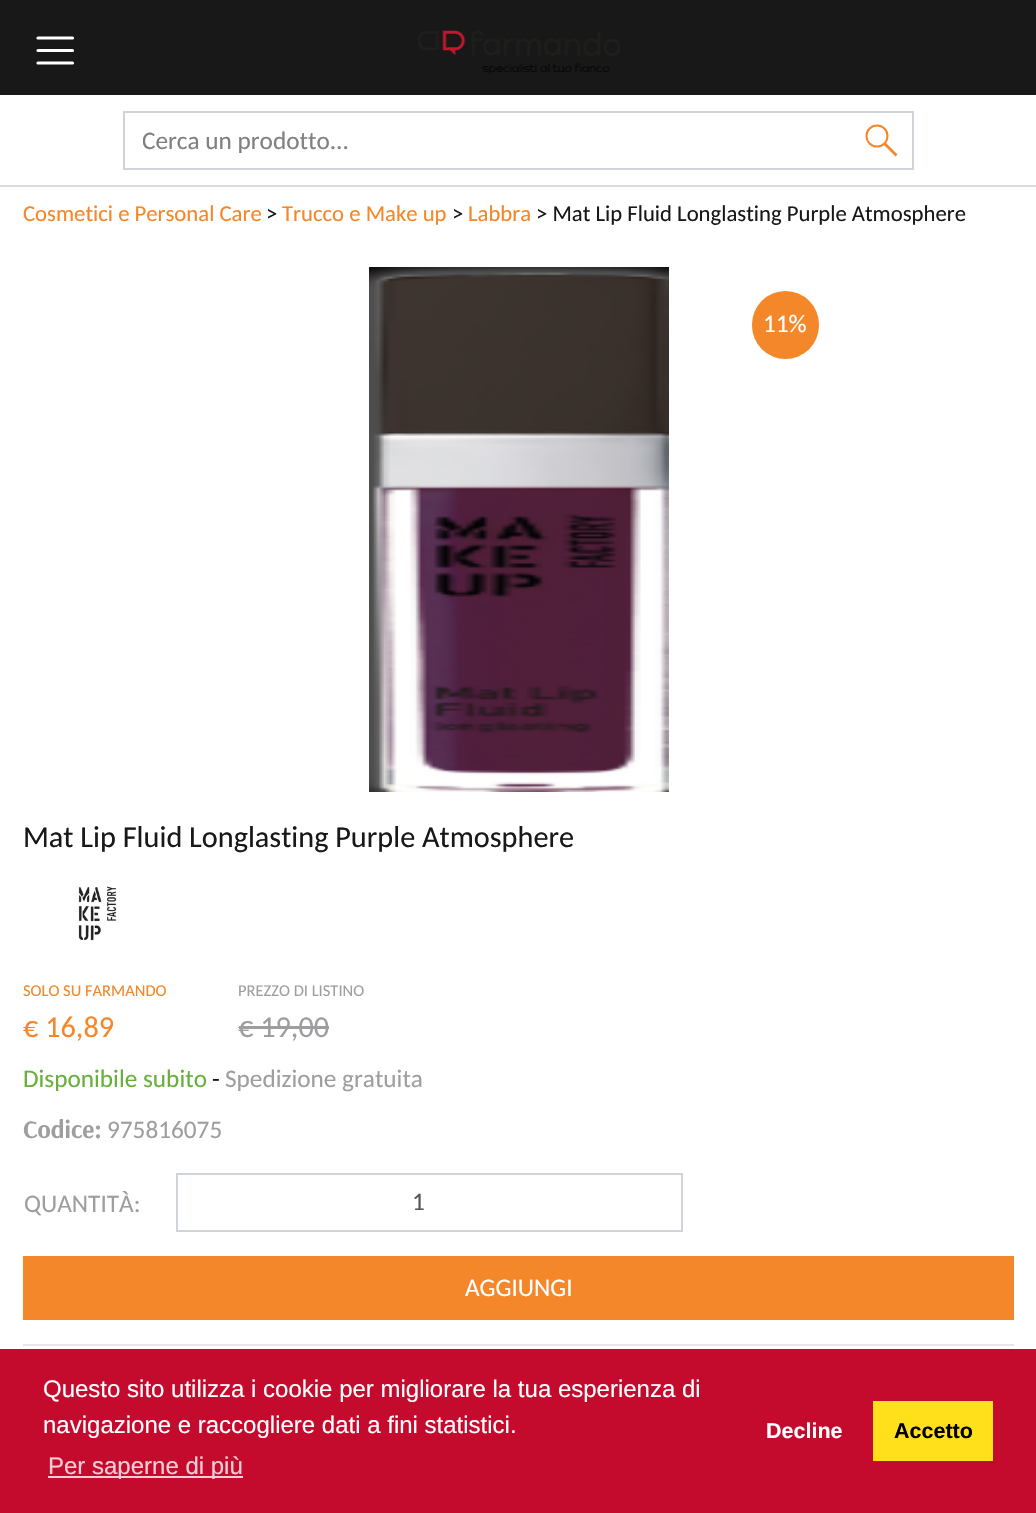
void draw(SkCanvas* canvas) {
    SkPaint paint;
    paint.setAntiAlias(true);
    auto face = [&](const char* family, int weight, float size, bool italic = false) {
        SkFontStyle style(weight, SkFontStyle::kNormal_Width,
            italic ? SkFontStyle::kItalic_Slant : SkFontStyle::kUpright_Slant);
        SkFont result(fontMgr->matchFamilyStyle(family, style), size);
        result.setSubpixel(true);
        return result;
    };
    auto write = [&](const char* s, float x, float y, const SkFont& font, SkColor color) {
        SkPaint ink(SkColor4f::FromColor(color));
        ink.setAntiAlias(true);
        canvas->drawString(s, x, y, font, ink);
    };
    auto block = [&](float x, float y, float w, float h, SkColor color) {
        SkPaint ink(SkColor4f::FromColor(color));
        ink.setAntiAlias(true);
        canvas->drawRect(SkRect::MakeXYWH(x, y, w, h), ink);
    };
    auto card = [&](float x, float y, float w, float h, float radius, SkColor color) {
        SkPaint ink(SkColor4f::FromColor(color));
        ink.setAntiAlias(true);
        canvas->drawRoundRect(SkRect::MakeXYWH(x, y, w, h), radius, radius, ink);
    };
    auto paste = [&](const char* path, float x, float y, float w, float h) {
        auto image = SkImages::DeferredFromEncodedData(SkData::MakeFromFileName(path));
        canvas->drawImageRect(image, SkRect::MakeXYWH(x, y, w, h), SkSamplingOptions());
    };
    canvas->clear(SK_ColorWHITE);
    block(0, 0, 1036, 95, SkColorSetRGB(24, 24, 24));
    block(0, 185, 1036, 2, SkColorSetRGB(221, 221, 221));
    paint.setStyle(SkPaint::kStroke_Style);
    paint.setStrokeWidth(3.2f);
    paint.setStrokeCap(SkPaint::kRound_Cap);
    paint.setColor(SK_ColorWHITE);
    canvas->drawPath(SkPathBuilder().moveTo(38, 38).lineTo(72.5f, 38).moveTo(38, 50.5f).lineTo(72.5f, 50.5f).moveTo(38, 63).lineTo(72.5f, 63).detach(), paint);
    paste("pic1.png", 418, 30, 202, 44);
    paint.setStrokeWidth(2);
    paint.setStrokeCap(SkPaint::kButt_Cap);
    paint.setColor(SkColorSetRGB(206, 212, 218));
    canvas->drawRect(SkRect::MakeXYWH(124, 112, 789, 57), paint);
    canvas->save();
    canvas->clipRect(SkRect::MakeXYWH(143, 125, 751, 31));
    auto kFont1 = face("Carlito", 400, 25.25f);
    write("Cerca un prodotto...", 142, 149, kFont1, SkColorSetRGB(128, 128, 128));
    canvas->restore();
    paint.setStyle(SkPaint::kFill_Style);
    paint.setColor(SkColorSetRGB(244, 135, 41));
    canvas->drawPath(SkPathBuilder(SkPathFillType::kEvenOdd).moveTo(883, 144).lineTo(885, 142).lineTo(897.5f, 154.5f).lineTo(895.5f, 156.5f).close().detach(), paint);
    paint.setStyle(SkPaint::kStroke_Style);
    canvas->drawCircle(877, 136, 10.5f, paint);
    auto kFont2 = face("Carlito", 400, 22.7f);
    write("Cosmetici e Personal Care", 23, 221, kFont2, SkColorSetRGB(244, 135, 41));
    write(">", 266, 221, kFont2, SkColorSetRGB(24, 24, 24));
    write("Trucco e Make up", 282, 221, kFont2, SkColorSetRGB(244, 135, 41));
    write(">", 452, 221, kFont2, SkColorSetRGB(24, 24, 24));
    write("Labbra", 468, 221, kFont2, SkColorSetRGB(244, 135, 41));
    write("> Mat Lip Fluid Longlasting Purple Atmosphere", 536, 221, kFont2, SkColorSetRGB(24, 24, 24));
    paste("pic2.png", 369, 267, 300, 525);
    card(752, 291, 67, 68, 33.5f, SkColorSetRGB(244, 135, 41));
    write("11%", 763, 332, kFont1, SK_ColorWHITE);
    auto kFont3 = face("Carlito", 400, 30.25f);
    write("Mat Lip Fluid Longlasting Purple Atmosphere", 23, 847, kFont3, SkColorSetRGB(24, 24, 24));
    paste("pic3.png", 78, 886, 39, 55);
    auto kFont4 = face("Carlito", 400, 16.5f);
    write("SOLO SU FARMANDO", 23, 996, kFont4, SkColorSetRGB(244, 135, 41));
    write("€ 16,89", 23, 1037, kFont3, SkColorSetRGB(244, 135, 41));
    write("PREZZO DI LISTINO", 238, 996, kFont4, SkColorSetRGB(158, 157, 160));
    write("€ 19,00", 238, 1037, kFont3, SkColorSetRGB(158, 157, 160));
    block(239, 1026, 90, 3, SkColorSetRGB(158, 157, 160));
    write("Disponibile subito", 23, 1087, kFont1, SkColorSetRGB(104, 175, 60));
    write("-", 212, 1087, kFont1, SkColorSetRGB(24, 24, 24));
    write("Spedizione gratuita", 225, 1087, kFont1, SkColorSetRGB(158, 157, 160));
    auto kFont5 = face("Arsenal", 700, 25.25f);
    write("Codice:", 23, 1138, kFont5, SkColorSetRGB(158, 157, 160));
    write("975816075", 107, 1138, kFont1, SkColorSetRGB(158, 157, 160));
    write("QUANTITÀ:", 24, 1212, kFont1, SkColorSetRGB(158, 157, 160));
    paint.setColor(SkColorSetRGB(206, 212, 218));
    canvas->drawRect(SkRect::MakeXYWH(177, 1174, 505, 57), paint);
    write("1", 412, 1210, kFont1, SkColorSetRGB(87, 88, 86));
    block(23, 1256, 991, 64, SkColorSetRGB(244, 135, 41));
    write("AGGIUNGI", 465, 1296, kFont1, SK_ColorWHITE);
    block(23, 1344, 991, 2, SkColorSetRGB(230, 230, 230));
    block(0, 1349, 1036, 164, SkColorSetRGB(196, 10, 45));
    auto kFont6 = face("Liberation Sans", 400, 24);
    write("Questo sito utilizza i cookie per migliorare la tua esperienza di", 43, 1397, kFont6, SK_ColorWHITE);
    write("navigazione e raccogliere dati a fini statistici.", 43, 1433, kFont6, SK_ColorWHITE);
    block(48, 1476, 195, 2, SkColorSetRGB(243, 206, 213));
    write("Per saperne di più", 48, 1474, kFont6, SkColorSetRGB(243, 206, 213));
    auto kFont7 = face("Liberation Sans", 700, 21.5f);
    write("Decline", 766, 1438, kFont7, SK_ColorWHITE);
    block(873, 1401, 120, 60, SkColorSetRGB(255, 224, 27));
    write("Accetto", 894, 1438, kFont7, SK_ColorBLACK);
}
